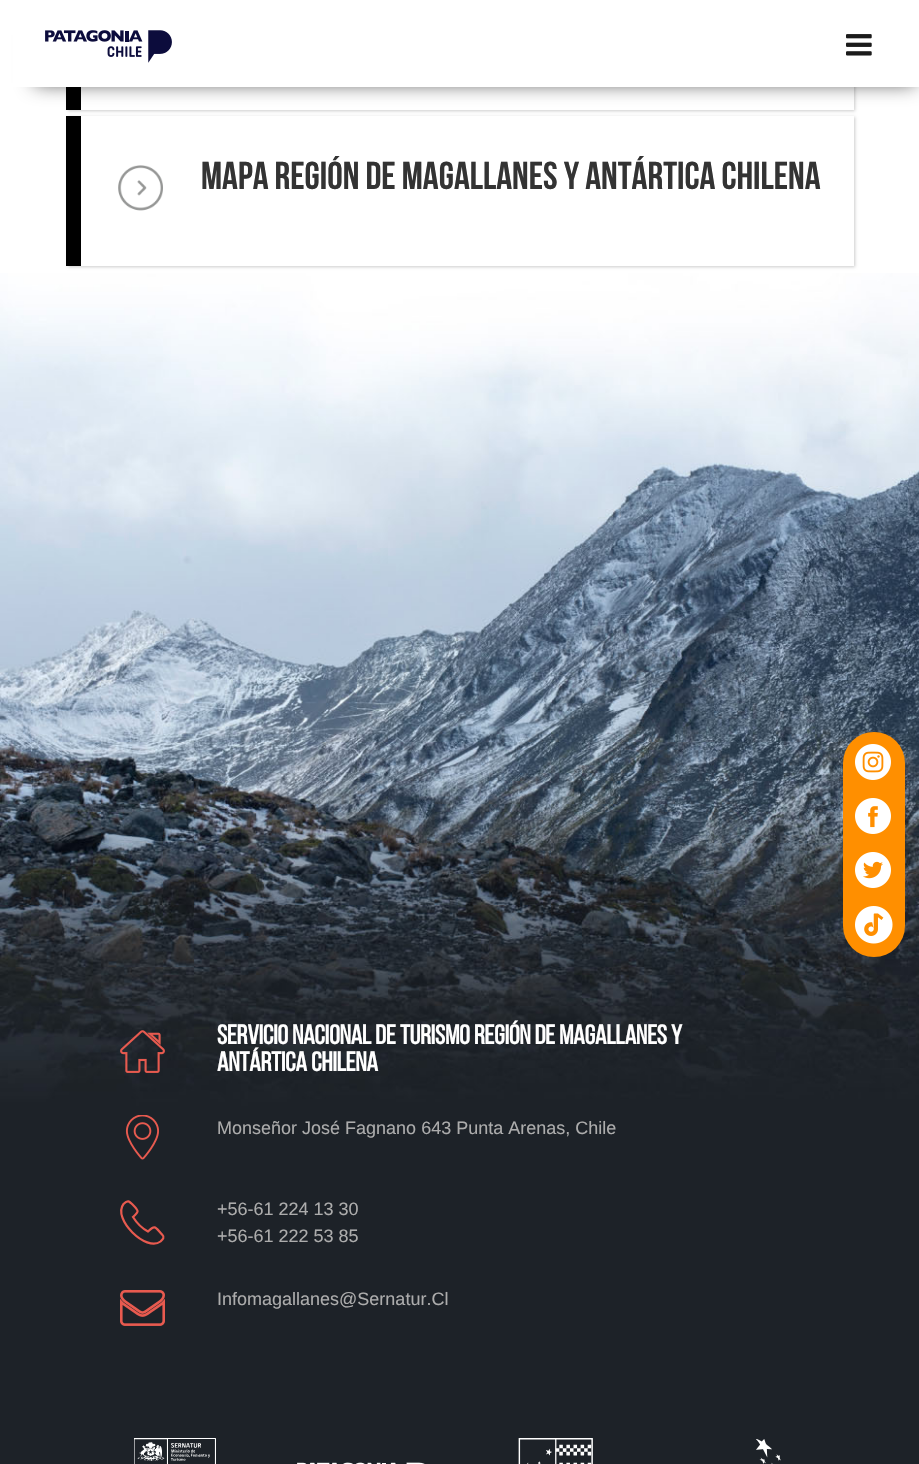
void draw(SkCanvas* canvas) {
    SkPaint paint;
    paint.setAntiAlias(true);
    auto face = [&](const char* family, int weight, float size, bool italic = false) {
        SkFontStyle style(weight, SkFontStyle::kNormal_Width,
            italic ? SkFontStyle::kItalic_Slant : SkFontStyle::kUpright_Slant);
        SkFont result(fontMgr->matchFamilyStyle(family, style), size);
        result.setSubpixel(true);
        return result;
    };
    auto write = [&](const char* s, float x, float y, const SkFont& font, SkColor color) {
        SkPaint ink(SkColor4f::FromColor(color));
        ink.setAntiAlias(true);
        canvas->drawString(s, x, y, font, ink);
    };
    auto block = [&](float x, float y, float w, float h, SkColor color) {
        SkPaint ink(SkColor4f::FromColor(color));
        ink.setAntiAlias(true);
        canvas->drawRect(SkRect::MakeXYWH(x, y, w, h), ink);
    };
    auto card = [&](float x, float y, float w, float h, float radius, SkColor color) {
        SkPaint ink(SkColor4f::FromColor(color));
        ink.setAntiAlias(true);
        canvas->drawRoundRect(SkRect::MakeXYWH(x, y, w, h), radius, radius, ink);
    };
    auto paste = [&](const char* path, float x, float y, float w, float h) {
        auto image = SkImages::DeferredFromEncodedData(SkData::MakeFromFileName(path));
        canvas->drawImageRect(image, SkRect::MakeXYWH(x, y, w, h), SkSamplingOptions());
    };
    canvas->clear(SK_ColorWHITE);
    paint.setColor(SkColorSetARGB(51, 0, 0, 0));
    paint.setMaskFilter(SkMaskFilter::MakeBlur(kNormal_SkBlurStyle, 1.5f));
    canvas->drawRect(SkRect::MakeXYWH(68, -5, 787, 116), paint);
    paint.setMaskFilter(nullptr);
    block(81, 87, 773, 23, SK_ColorWHITE);
    block(66, 87, 15, 23, SK_ColorBLACK);
    paint.setColor(SkColorSetARGB(191, 0, 0, 0));
    paint.setMaskFilter(SkMaskFilter::MakeBlur(kNormal_SkBlurStyle, 10));
    canvas->drawRect(SkRect::MakeXYWH(35, 35, 880, 48), paint);
    paint.setMaskFilter(nullptr);
    block(13, 0, 906, 87, SK_ColorWHITE);
    paste("pic1.png", 45, 30, 127, 33);
    paste("pic2.png", 846, 34, 26, 22);
    paint.setColor(SkColorSetARGB(51, 0, 0, 0));
    paint.setMaskFilter(SkMaskFilter::MakeBlur(kNormal_SkBlurStyle, 1.5f));
    canvas->drawRect(SkRect::MakeXYWH(68, 117, 787, 150), paint);
    paint.setMaskFilter(nullptr);
    block(81, 116, 773, 150, SK_ColorWHITE);
    block(66, 116, 15, 150, SK_ColorBLACK);
    paste("pic3.png", 118, 165, 45, 46);
    auto kFont1 = face("Bebas Neue", 700, 39);
    write("Mapa Región de Magallanes y Antártica chilena", 201, 189, kFont1, SkColorSetRGB(51, 51, 51));
    paste("pic8.png", 0, 273, 919, 1191);
    card(843, 732, 62, 225, 31, SkColorSetRGB(255, 143, 0));
    paste("pic4.png", 855, 744, 36, 36);
    paste("pic5.png", 855, 798, 36, 36);
    paste("pic6.png", 855, 852, 36, 36);
    paste("pic7.png", 855, 906, 38, 38);
    paste("pic9.png", 120, 1030, 45, 43);
    auto kFont2 = face("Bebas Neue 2", 700, 27);
    write("SERVICIO NACIONAL DE TURISMO REGIÓN DE MAGALLANES Y", 217, 1044, kFont2, SK_ColorWHITE);
    write("ANTÁRTICA CHILENA", 217, 1071, kFont2, SK_ColorWHITE);
    paste("pic10.png", 125, 1115, 34, 45);
    auto kFont3 = face("Liberation Sans", 400, 18);
    write("Monseñor José Fagnano 643 Punta Arenas, Chile", 217, 1134, kFont3, SkColorSetRGB(172, 172, 172));
    paint.setStyle(SkPaint::kStroke_Style);
    paint.setStrokeWidth(2.2f);
    paint.setColor(SkColorSetRGB(232, 90, 79));
    canvas->drawPath(SkPathBuilder().moveTo(162.5f, 1235).cubicTo(155.5f, 1227.5f, 155.5f, 1224, 148, 1231.5f).cubicTo(141.5f, 1228, 137, 1223.5f, 133, 1217).cubicTo(139, 1211.5f, 139, 1211, 133.5f, 1205.5f).cubicTo(129, 1201, 128, 1199.5f, 123.5f, 1204).cubicTo(112, 1219, 146.5f, 1252.5f, 160.5f, 1241.5f).cubicTo(162.5f, 1239.5f, 165, 1237.5f, 162.5f, 1235).close().detach(), paint);
    write("+56-61 224 13 30", 217, 1215, kFont3, SkColorSetRGB(172, 172, 172));
    write("+56-61 222 53 85", 217, 1242, kFont3, SkColorSetRGB(172, 172, 172));
    paste("pic11.png", 120, 1290, 45, 36);
    write("Infomagallanes@Sernatur.Cl", 217, 1305, kFont3, SkColorSetRGB(172, 172, 172));
    paste("pic12.png", 134, 1438, 82, 26);
    paste("pic13.png", 297, 1462, 128, 2);
    paste("pic14.png", 518, 1438, 75, 26);
    paste("pic15.png", 756, 1439, 25, 25);
}
